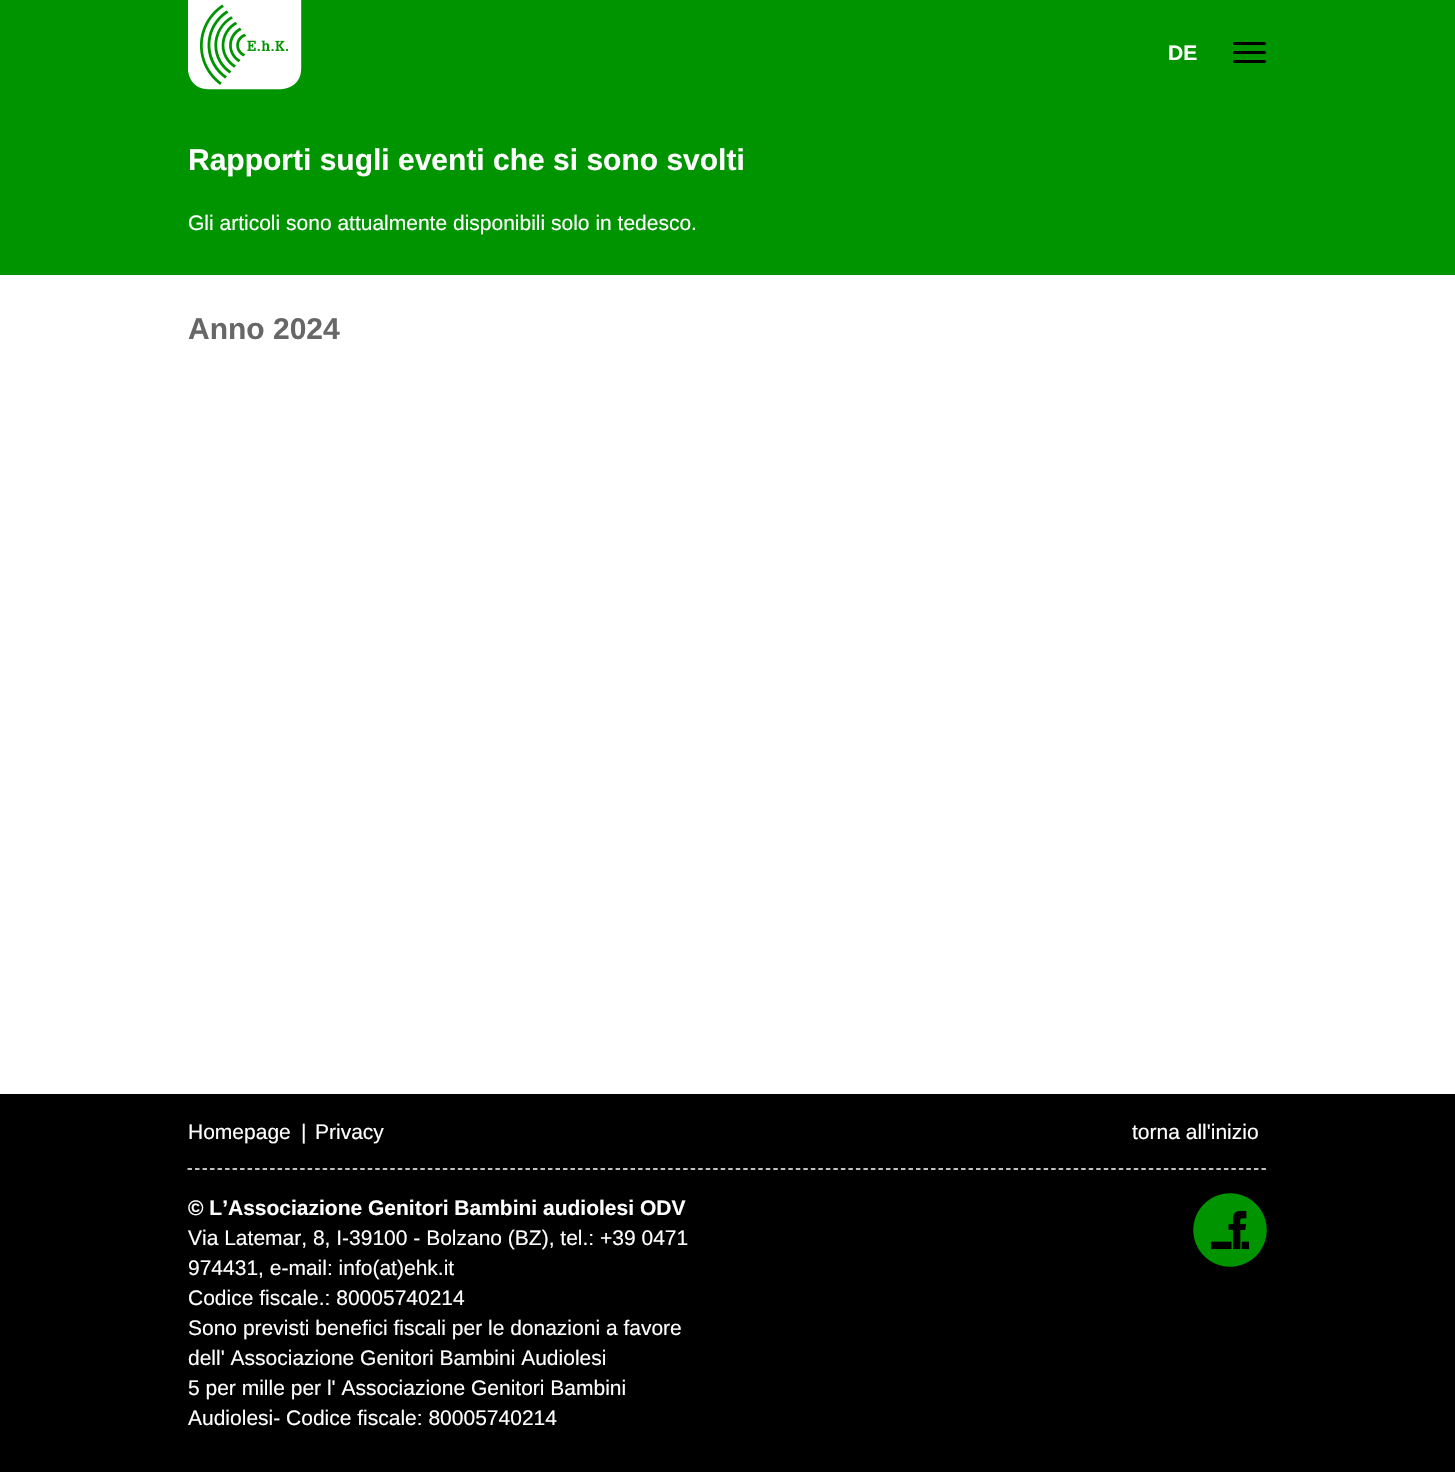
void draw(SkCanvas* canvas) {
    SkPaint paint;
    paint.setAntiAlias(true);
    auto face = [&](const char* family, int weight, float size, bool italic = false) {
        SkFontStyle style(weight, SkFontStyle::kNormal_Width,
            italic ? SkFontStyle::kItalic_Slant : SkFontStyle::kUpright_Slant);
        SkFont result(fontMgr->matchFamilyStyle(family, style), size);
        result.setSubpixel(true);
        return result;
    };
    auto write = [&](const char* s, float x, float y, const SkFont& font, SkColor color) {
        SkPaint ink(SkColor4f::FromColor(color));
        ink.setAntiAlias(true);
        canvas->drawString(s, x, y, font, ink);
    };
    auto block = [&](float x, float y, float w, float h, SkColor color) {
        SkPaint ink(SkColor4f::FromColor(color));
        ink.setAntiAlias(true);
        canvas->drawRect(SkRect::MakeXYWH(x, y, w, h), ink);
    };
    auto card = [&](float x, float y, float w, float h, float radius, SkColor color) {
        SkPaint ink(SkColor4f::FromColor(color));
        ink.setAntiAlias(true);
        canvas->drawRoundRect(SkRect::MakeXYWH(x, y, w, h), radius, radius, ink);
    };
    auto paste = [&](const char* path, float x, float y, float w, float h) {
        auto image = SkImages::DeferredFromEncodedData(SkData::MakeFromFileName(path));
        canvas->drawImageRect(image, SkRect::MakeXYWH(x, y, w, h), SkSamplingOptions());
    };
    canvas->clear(SK_ColorBLACK);
    block(0, 0, 1455, 275, SkColorSetRGB(0, 148, 0));
    paste("pic1.png", 188, 0, 114, 90);
    auto kFont1 = face("Liberation Sans", 700, 21);
    write("DE", 1168, 60, kFont1, SK_ColorWHITE);
    card(1233, 42, 33, 3, 1.5f, SK_ColorBLACK);
    card(1233, 51, 33, 3, 1.5f, SK_ColorBLACK);
    card(1233, 60, 33, 3, 1.5f, SK_ColorBLACK);
    block(0, 275, 1455, 819, SK_ColorWHITE);
    auto kFont2 = face("Liberation Sans", 700, 30);
    write("Rapporti sugli eventi che si sono svolti", 188, 170, kFont2, SK_ColorWHITE);
    auto kFont3 = face("Liberation Sans", 400, 21);
    write("Gli articoli sono attualmente disponibili solo in tedesco.", 188, 230, kFont3, SK_ColorWHITE);
    write("Anno 2024", 188, 339, kFont2, SkColorSetRGB(103, 103, 103));
    paint.setStyle(SkPaint::kStroke_Style);
    paint.setStrokeWidth(1.5f);
    paint.setColor(SK_ColorWHITE);
    paint.setPathEffect(SkDashPathEffect::Make({{4.5f, 3.01f}}, 0));
    canvas->drawPath(SkPathBuilder().moveTo(187.5f, 1169).lineTo(1267.5f, 1169).detach(), paint);
    paint.setPathEffect(nullptr);
    write("Homepage", 188, 1139, kFont3, SK_ColorWHITE);
    write("|", 301, 1139, kFont3, SK_ColorWHITE);
    write("Privacy", 315, 1139, kFont3, SK_ColorWHITE);
    write("torna all'inizio", 1132, 1139, kFont3, SK_ColorWHITE);
    write("© L’Associazione Genitori Bambini audiolesi ODV", 188, 1215, kFont1, SK_ColorWHITE);
    write("Via Latemar, 8, I-39100 - Bolzano (BZ), tel.: +39 0471", 188, 1245, kFont3, SK_ColorWHITE);
    write("974431, e-mail: info(at)ehk.it", 188, 1275, kFont3, SK_ColorWHITE);
    write("Codice fiscale.: 80005740214", 188, 1305, kFont3, SK_ColorWHITE);
    write("Sono previsti benefici fiscali per le donazioni a favore", 188, 1335, kFont3, SK_ColorWHITE);
    write("dell' Associazione Genitori Bambini Audiolesi", 188, 1365, kFont3, SK_ColorWHITE);
    write("5 per mille per l' Associazione Genitori Bambini", 188, 1395, kFont3, SK_ColorWHITE);
    write("Audiolesi- Codice fiscale: 80005740214", 188, 1425, kFont3, SK_ColorWHITE);
    paste("pic2.png", 1193, 1193, 74, 74);
}
